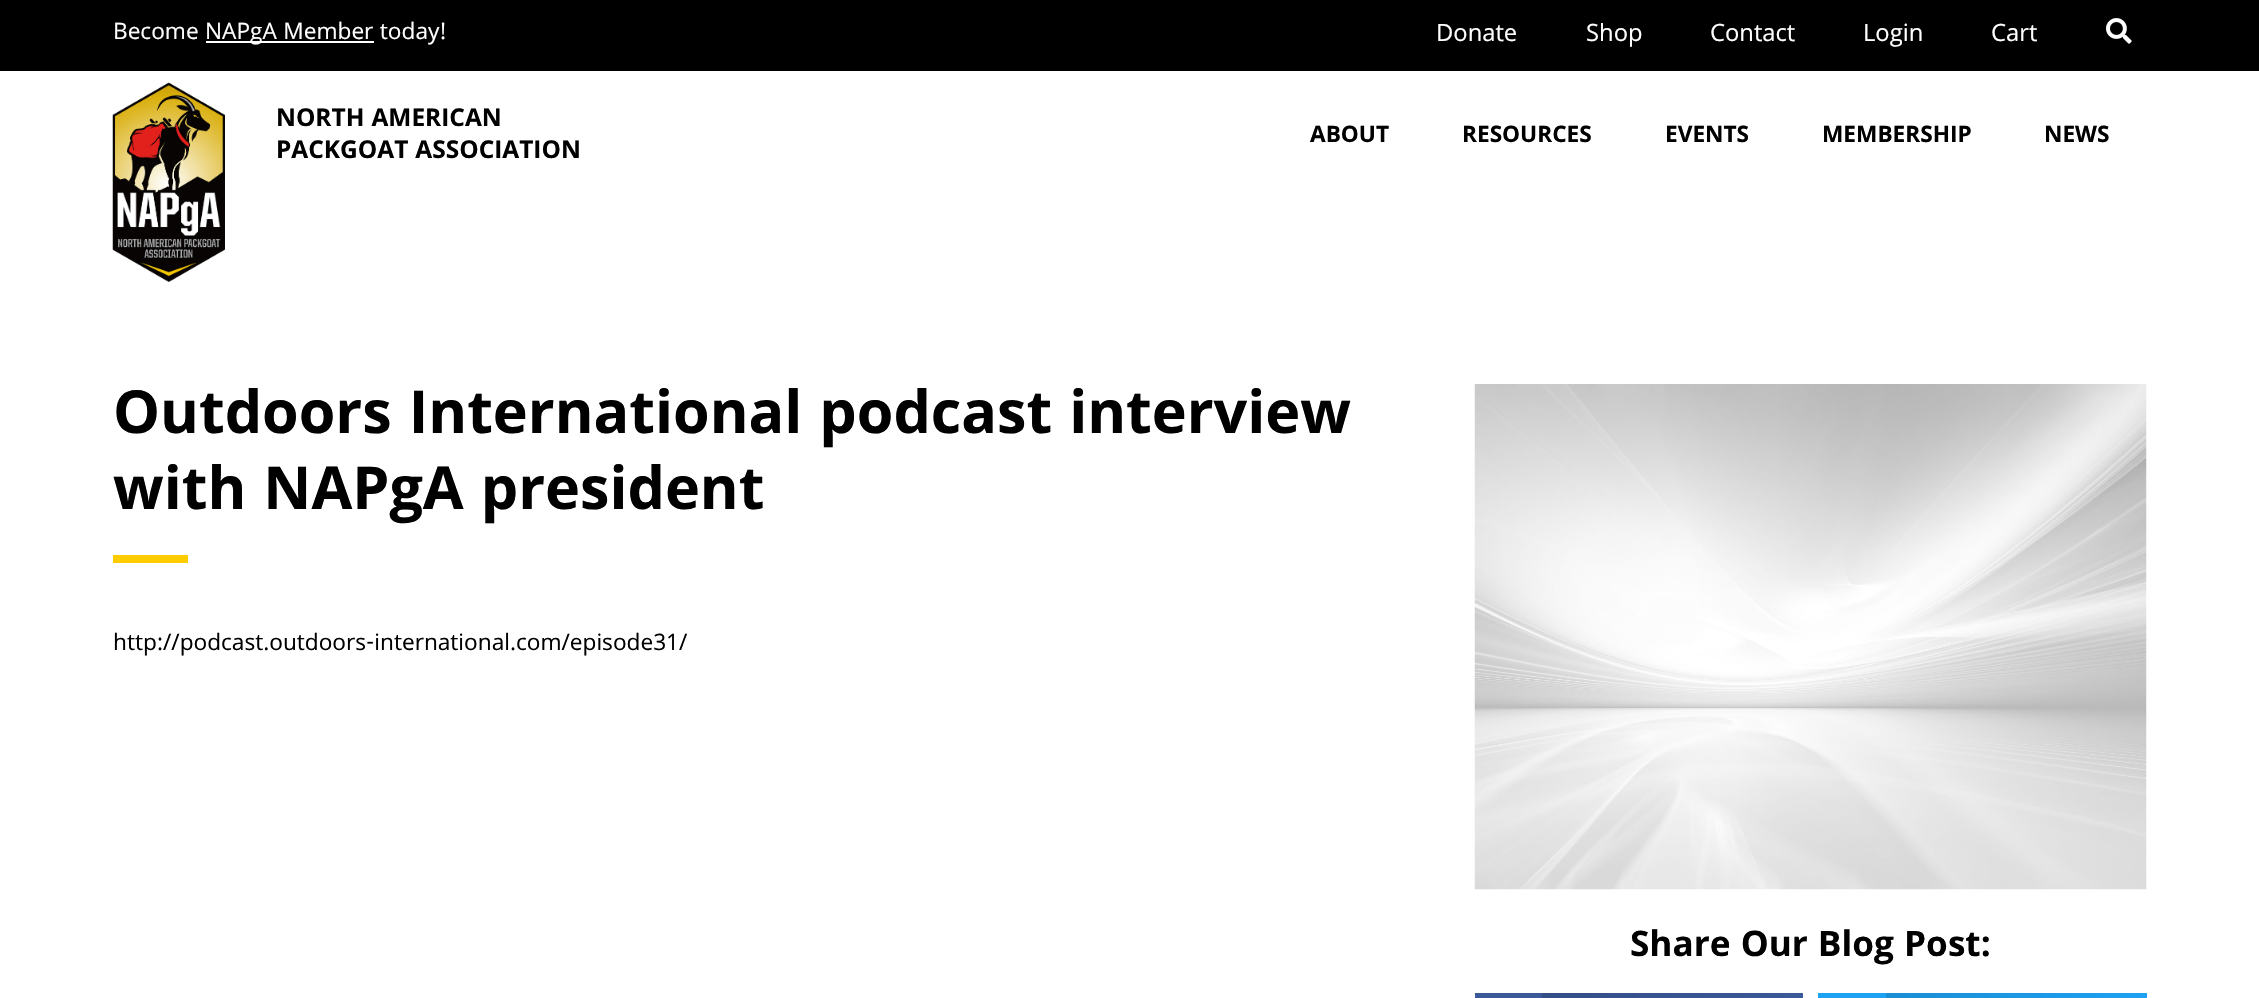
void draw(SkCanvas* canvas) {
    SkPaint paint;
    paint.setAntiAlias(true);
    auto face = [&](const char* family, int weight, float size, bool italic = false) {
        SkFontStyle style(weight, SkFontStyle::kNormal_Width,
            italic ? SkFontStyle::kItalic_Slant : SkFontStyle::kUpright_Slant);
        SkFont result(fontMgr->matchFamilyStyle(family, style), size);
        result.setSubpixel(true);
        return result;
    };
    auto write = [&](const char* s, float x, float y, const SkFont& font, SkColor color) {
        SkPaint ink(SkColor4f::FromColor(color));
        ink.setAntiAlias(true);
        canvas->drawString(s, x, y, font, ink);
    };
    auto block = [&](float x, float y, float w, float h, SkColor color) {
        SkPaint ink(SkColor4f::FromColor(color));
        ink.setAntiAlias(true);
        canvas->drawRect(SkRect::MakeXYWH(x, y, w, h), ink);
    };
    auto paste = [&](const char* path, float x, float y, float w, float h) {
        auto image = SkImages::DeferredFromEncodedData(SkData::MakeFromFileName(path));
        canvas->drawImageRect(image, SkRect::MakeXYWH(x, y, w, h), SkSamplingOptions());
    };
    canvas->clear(SK_ColorWHITE);
    block(0, 0, 2259, 71, SK_ColorBLACK);
    auto kFont1 = face("Khula", 400, 24.3f);
    write("Become", 113, 39, kFont1, SK_ColorWHITE);
    block(206, 41, 168, 2, SK_ColorWHITE);
    write("NAPgA Member today!", 205, 39, kFont1, SK_ColorWHITE);
    auto kFont2 = face("Khula", 400, 25.5f);
    write("Donate", 1436, 41, kFont2, SK_ColorWHITE);
    write("Shop", 1586, 41, kFont2, SK_ColorWHITE);
    write("Contact", 1710, 41, kFont2, SK_ColorWHITE);
    write("Login", 1863, 41, kFont2, SK_ColorWHITE);
    write("Cart", 1991, 41, kFont2, SK_ColorWHITE);
    paste("pic1.png", 2106, 18, 26, 26);
    paste("pic2.png", 112, 82, 113, 200);
    auto kFont3 = face("Khula", 700, 26.25f);
    write("NORTH AMERICAN", 276, 126, kFont3, SK_ColorBLACK);
    write("PACKGOAT ASSOCIATION", 276, 158, kFont3, SK_ColorBLACK);
    auto kFont4 = face("Khula", 700, 24.3f);
    write("ABOUT", 1310, 142, kFont4, SK_ColorBLACK);
    write("RESOURCES", 1462, 142, kFont4, SK_ColorBLACK);
    write("EVENTS", 1665, 142, kFont4, SK_ColorBLACK);
    write("MEMBERSHIP", 1822, 142, kFont4, SK_ColorBLACK);
    write("NEWS", 2044, 142, kFont4, SK_ColorBLACK);
    auto kFont5 = face("Khula", 700, 63.5f);
    write("Outdoors International podcast interview", 113, 433, kFont5, SK_ColorBLACK);
    write("with NAPgA president", 113, 509, kFont5, SK_ColorBLACK);
    block(113, 555, 75, 8, SkColorSetRGB(255, 204, 0));
    write("http://podcast.outdoors-international.com/episode31/", 113, 650, kFont1, SK_ColorBLACK);
    paste("pic3.png", 1474, 384, 673, 506);
    auto kFont6 = face("Khula", 700, 37.75f);
    write("Share Our Blog Post:", 1630, 956, kFont6, SK_ColorBLACK);
    block(1475, 993, 67, 5, SkColorSetRGB(59, 89, 152));
    {
        const SkColor colors[] = {SkColorSetRGB(52, 78, 134), SkColorSetRGB(59, 89, 152)};
        const float stops[] = {0, 1};
        const SkPoint ends[] = {{1542, 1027}, {1803, 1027}};
        paint.setShader(SkGradientShader::MakeLinear(ends, colors, stops, 2, SkTileMode::kClamp));
        paint.setAlpha(255);
    }
    canvas->drawRect(SkRect::MakeXYWH(1542, 993, 261, 5), paint);
    block(1818, 993, 68, 5, SkColorSetRGB(29, 161, 242));
    {
        const SkColor colors[] = {SkColorSetRGB(26, 142, 213), SkColorSetRGB(29, 161, 242)};
        const float stops[] = {0, 1};
        const SkPoint ends[] = {{1886, 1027}, {2147, 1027}};
        paint.setShader(SkGradientShader::MakeLinear(ends, colors, stops, 2, SkTileMode::kClamp));
        paint.setAlpha(255);
    }
    canvas->drawRect(SkRect::MakeXYWH(1886, 993, 261, 5), paint);
}
